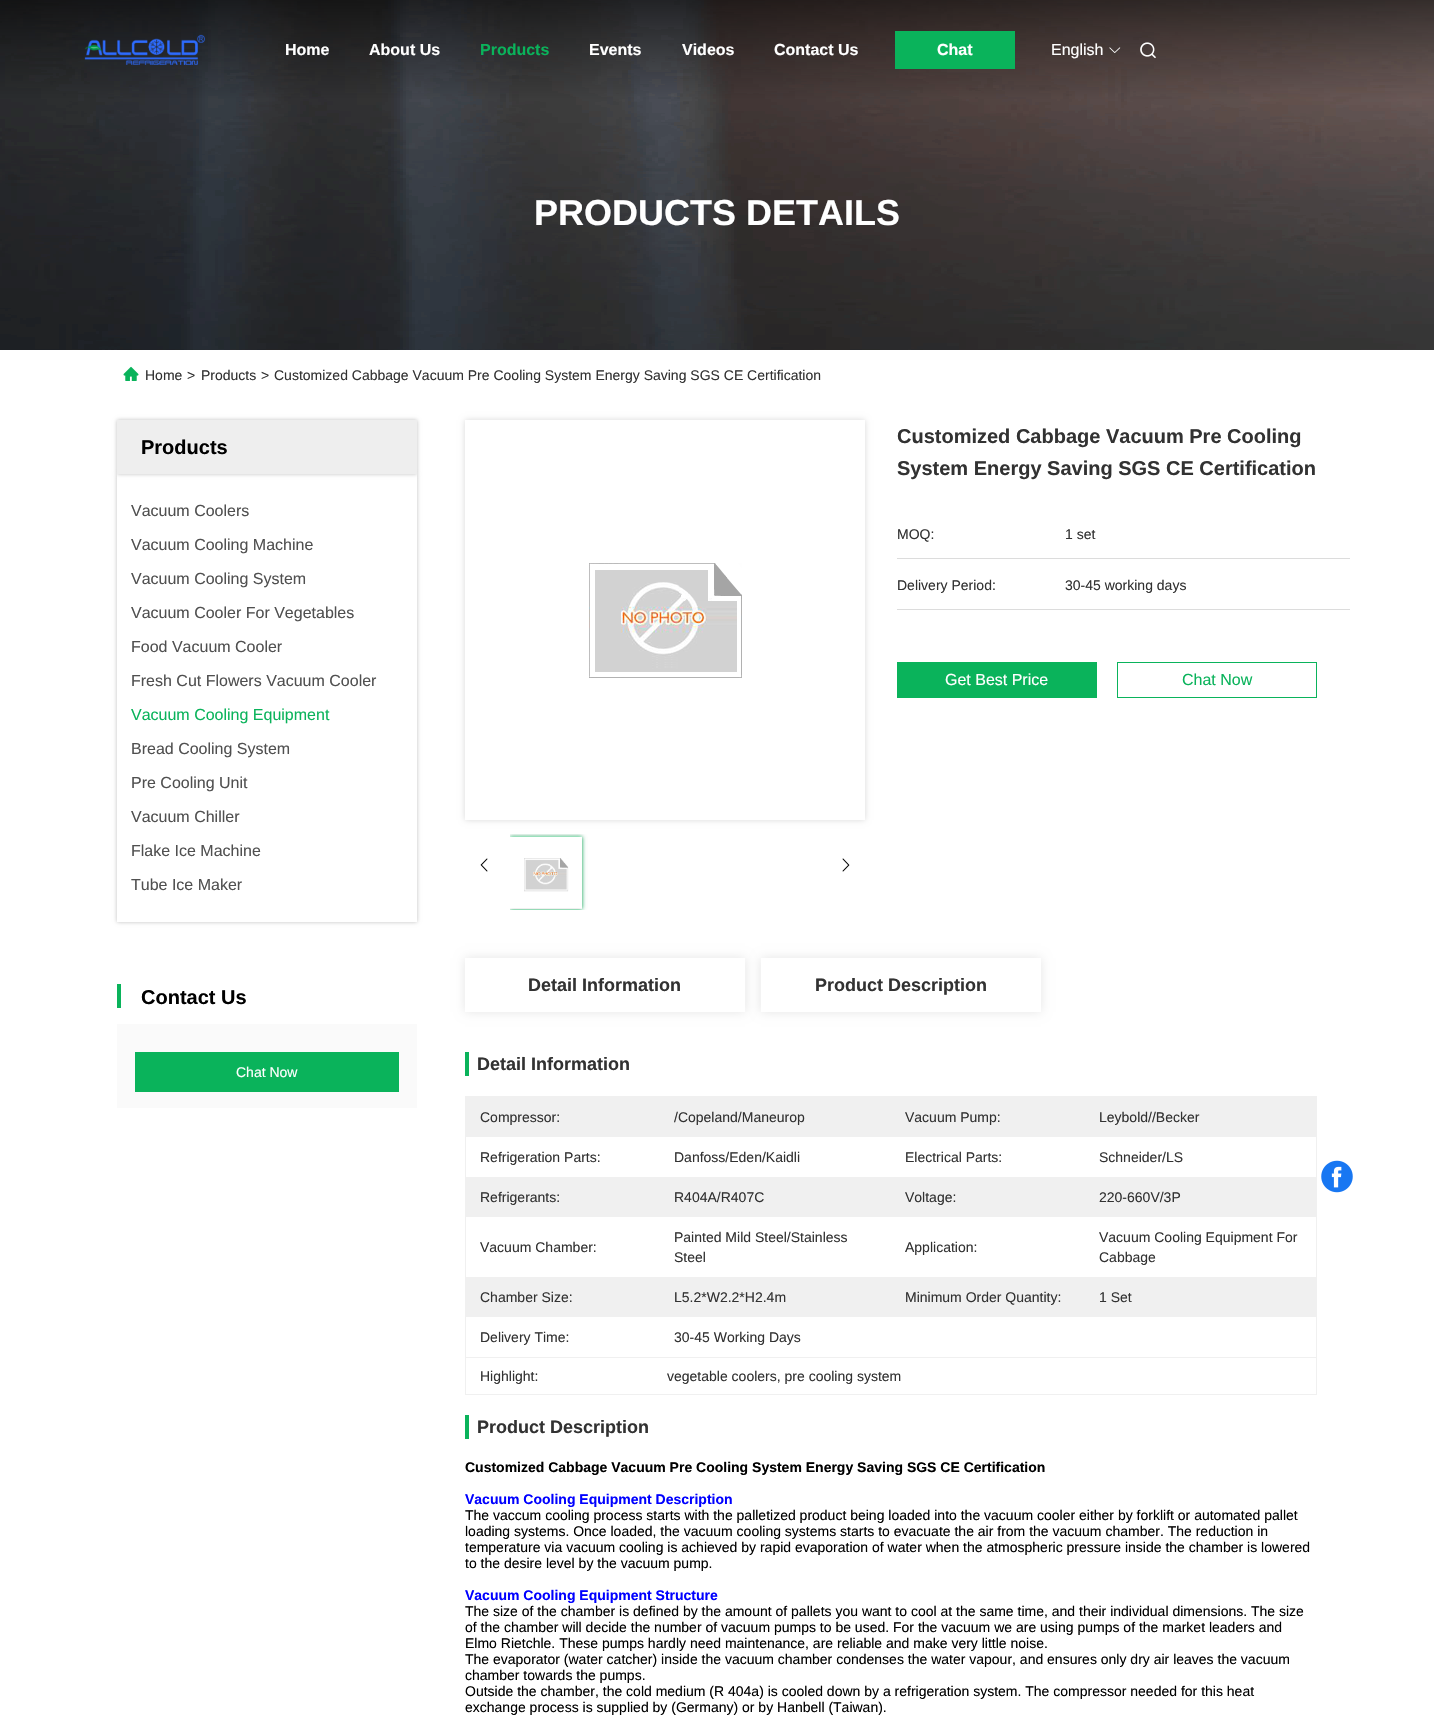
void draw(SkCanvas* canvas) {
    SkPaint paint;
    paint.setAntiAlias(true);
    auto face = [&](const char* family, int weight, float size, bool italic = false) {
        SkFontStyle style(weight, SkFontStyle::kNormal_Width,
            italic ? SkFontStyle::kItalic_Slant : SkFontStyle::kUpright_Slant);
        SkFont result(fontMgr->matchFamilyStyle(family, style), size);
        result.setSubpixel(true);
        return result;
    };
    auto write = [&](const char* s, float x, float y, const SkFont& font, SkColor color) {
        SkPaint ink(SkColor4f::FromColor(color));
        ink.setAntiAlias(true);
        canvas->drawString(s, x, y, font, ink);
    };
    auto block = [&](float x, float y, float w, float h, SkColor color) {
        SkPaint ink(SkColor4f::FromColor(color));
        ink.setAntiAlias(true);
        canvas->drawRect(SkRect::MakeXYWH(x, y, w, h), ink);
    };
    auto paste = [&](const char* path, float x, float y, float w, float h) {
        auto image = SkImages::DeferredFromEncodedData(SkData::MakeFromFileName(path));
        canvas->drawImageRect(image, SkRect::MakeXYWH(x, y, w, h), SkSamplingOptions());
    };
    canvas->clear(SK_ColorWHITE);
    paste("pic4.png", 0, 0, 1434, 350);
    paste("pic1.png", 84, 34, 121, 31);
    auto kFont1 = face("Liberation Sans", 700, 16);
    write("Home", 285, 55, kFont1, SK_ColorWHITE);
    write("About Us", 369, 55, kFont1, SK_ColorWHITE);
    write("Products", 480, 55, kFont1, SkColorSetRGB(10, 179, 91));
    write("Events", 589, 55, kFont1, SK_ColorWHITE);
    write("Videos", 682, 55, kFont1, SK_ColorWHITE);
    write("Contact Us", 774, 55, kFont1, SK_ColorWHITE);
    block(895, 31, 120, 38, SkColorSetRGB(10, 179, 91));
    write("Chat", 937, 55, kFont1, SK_ColorWHITE);
    auto kFont2 = face("Liberation Sans", 400, 16);
    write("English", 1051, 55, kFont2, SK_ColorWHITE);
    paste("pic2.png", 1109, 47, 12, 6);
    paste("pic3.png", 1140, 42, 16, 17);
    auto kFont3 = face("Liberation Sans", 700, 36);
    write("PRODUCTS DETAILS", 534, 225, kFont3, SK_ColorWHITE);
    paste("pic5.png", 123, 366, 16, 15);
    auto kFont4 = face("Liberation Sans", 400, 14);
    write("Home", 145, 380, kFont4, SkColorSetRGB(50, 50, 50));
    write(">", 187, 380, kFont4, SkColorSetRGB(50, 50, 50));
    write("Products", 201, 380, kFont4, SkColorSetRGB(50, 50, 50));
    write(">", 261, 380, kFont4, SkColorSetRGB(50, 50, 50));
    write("Customized Cabbage Vacuum Pre Cooling System Energy Saving SGS CE Certification", 274, 380, kFont4, SkColorSetRGB(50, 50, 50));
    paint.setColor(SkColorSetARGB(64, 0, 0, 0));
    paint.setMaskFilter(SkMaskFilter::MakeBlur(kNormal_SkBlurStyle, 2));
    canvas->drawRect(SkRect::MakeXYWH(117, 420, 300, 54), paint);
    paint.setMaskFilter(nullptr);
    canvas->save();
    canvas->clipPath(SkPathBuilder(SkPathFillType::kEvenOdd).moveTo(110, 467).lineTo(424, 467).lineTo(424, 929).lineTo(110, 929).close().moveTo(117, 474).lineTo(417, 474).lineTo(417, 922).lineTo(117, 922).close().detach(), true);
    paint.setMaskFilter(SkMaskFilter::MakeBlur(kNormal_SkBlurStyle, 2));
    canvas->drawRect(SkRect::MakeXYWH(117, 474, 300, 448), paint);
    paint.setMaskFilter(nullptr);
    canvas->restore();
    block(117, 420, 300, 54, SkColorSetRGB(238, 238, 238));
    auto kFont5 = face("Liberation Sans", 700, 20);
    write("Products", 141, 454, kFont5, SK_ColorBLACK);
    write("Vacuum Coolers", 131, 516, kFont2, SkColorSetRGB(80, 80, 80));
    write("Vacuum Cooling Machine", 131, 550, kFont2, SkColorSetRGB(80, 80, 80));
    write("Vacuum Cooling System", 131, 584, kFont2, SkColorSetRGB(80, 80, 80));
    write("Vacuum Cooler For Vegetables", 131, 618, kFont2, SkColorSetRGB(80, 80, 80));
    write("Food Vacuum Cooler", 131, 652, kFont2, SkColorSetRGB(80, 80, 80));
    write("Fresh Cut Flowers Vacuum Cooler", 131, 686, kFont2, SkColorSetRGB(80, 80, 80));
    write("Vacuum Cooling Equipment", 131, 720, kFont2, SkColorSetRGB(10, 179, 91));
    write("Bread Cooling System", 131, 754, kFont2, SkColorSetRGB(80, 80, 80));
    write("Pre Cooling Unit", 131, 788, kFont2, SkColorSetRGB(80, 80, 80));
    write("Vacuum Chiller", 131, 822, kFont2, SkColorSetRGB(80, 80, 80));
    write("Flake Ice Machine", 131, 856, kFont2, SkColorSetRGB(80, 80, 80));
    write("Tube Ice Maker", 131, 890, kFont2, SkColorSetRGB(80, 80, 80));
    block(117, 984, 4, 24, SkColorSetRGB(10, 179, 91));
    write("Contact Us", 141, 1004, kFont5, SK_ColorBLACK);
    block(117, 1024, 300, 84, SkColorSetRGB(250, 250, 250));
    block(135, 1052, 264, 40, SkColorSetRGB(10, 179, 91));
    write("Chat Now", 236, 1077, kFont4, SK_ColorWHITE);
    canvas->save();
    canvas->clipPath(SkPathBuilder(SkPathFillType::kEvenOdd).moveTo(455, 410).lineTo(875, 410).lineTo(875, 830).lineTo(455, 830).close().moveTo(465, 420).lineTo(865, 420).lineTo(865, 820).lineTo(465, 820).close().detach(), true);
    paint.setColor(SkColorSetARGB(38, 0, 0, 0));
    paint.setMaskFilter(SkMaskFilter::MakeBlur(kNormal_SkBlurStyle, 3));
    canvas->drawRect(SkRect::MakeXYWH(465, 420, 400, 400), paint);
    paint.setMaskFilter(nullptr);
    canvas->restore();
    paste("pic6.png", 589, 563, 153, 115);
    paste("pic7.png", 480, 858, 8, 14);
    canvas->save();
    canvas->clipRect(SkRect::MakeXYWH(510, 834, 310, 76));
    canvas->clipPath(SkPathBuilder(SkPathFillType::kEvenOdd).moveTo(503, 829).lineTo(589, 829).lineTo(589, 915).lineTo(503, 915).close().moveTo(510, 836).lineTo(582, 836).lineTo(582, 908).lineTo(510, 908).close().detach(), true);
    paint.setMaskFilter(SkMaskFilter::MakeBlur(kNormal_SkBlurStyle, 2));
    canvas->drawRect(SkRect::MakeXYWH(510, 836, 72, 72), paint);
    paint.setMaskFilter(nullptr);
    canvas->restore();
    canvas->save();
    canvas->clipRect(SkRect::MakeXYWH(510, 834, 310, 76));
    canvas->clipPath(SkPathBuilder(SkPathFillType::kEvenOdd).moveTo(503, 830).lineTo(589, 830).lineTo(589, 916).lineTo(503, 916).close().moveTo(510, 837).lineTo(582, 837).lineTo(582, 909).lineTo(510, 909).close().detach(), true);
    paint.setColor(SkColorSetRGB(10, 179, 91));
    paint.setMaskFilter(SkMaskFilter::MakeBlur(kNormal_SkBlurStyle, 2));
    canvas->drawRect(SkRect::MakeXYWH(510, 837, 72, 72), paint);
    paint.setMaskFilter(nullptr);
    canvas->restore();
    paste("pic8.png", 524, 858, 45, 34);
    paste("pic9.png", 842, 858, 8, 14);
    write("Customized Cabbage Vacuum Pre Cooling", 897, 443, kFont5, SkColorSetRGB(50, 50, 50));
    write("System Energy Saving SGS CE Certification", 897, 475, kFont5, SkColorSetRGB(50, 50, 50));
    block(897, 558, 453, 1, SkColorSetRGB(220, 220, 220));
    write("MOQ:", 897, 539, kFont4, SkColorSetRGB(50, 50, 50));
    write("1 set", 1065, 539, kFont4, SkColorSetRGB(50, 50, 50));
    block(897, 609, 453, 1, SkColorSetRGB(220, 220, 220));
    write("Delivery Period:", 897, 590, kFont4, SkColorSetRGB(50, 50, 50));
    write("30-45 working days", 1065, 590, kFont4, SkColorSetRGB(50, 50, 50));
    block(897, 662, 200, 36, SkColorSetRGB(10, 179, 91));
    write("Get Best Price", 945, 685, kFont2, SK_ColorWHITE);
    paint.setStyle(SkPaint::kStroke_Style);
    paint.setStrokeWidth(1);
    canvas->drawRect(SkRect::MakeXYWH(1117.5f, 662.5f, 199, 35), paint);
    write("Chat Now", 1182, 685, kFont2, SkColorSetRGB(10, 179, 91));
    canvas->save();
    canvas->clipPath(SkPathBuilder(SkPathFillType::kEvenOdd).moveTo(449, 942).lineTo(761, 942).lineTo(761, 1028).lineTo(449, 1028).close().moveTo(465, 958).lineTo(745, 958).lineTo(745, 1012).lineTo(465, 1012).close().detach(), true);
    paint.setStyle(SkPaint::kFill_Style);
    paint.setColor(SkColorSetARGB(26, 0, 0, 0));
    paint.setMaskFilter(SkMaskFilter::MakeBlur(kNormal_SkBlurStyle, 5));
    canvas->drawRect(SkRect::MakeXYWH(465, 958, 280, 54), paint);
    paint.setMaskFilter(nullptr);
    canvas->restore();
    auto kFont6 = face("Liberation Sans", 700, 18);
    write("Detail Information", 528, 991, kFont6, SkColorSetRGB(50, 50, 50));
    canvas->save();
    canvas->clipPath(SkPathBuilder(SkPathFillType::kEvenOdd).moveTo(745, 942).lineTo(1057, 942).lineTo(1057, 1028).lineTo(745, 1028).close().moveTo(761, 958).lineTo(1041, 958).lineTo(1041, 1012).lineTo(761, 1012).close().detach(), true);
    paint.setMaskFilter(SkMaskFilter::MakeBlur(kNormal_SkBlurStyle, 5));
    canvas->drawRect(SkRect::MakeXYWH(761, 958, 280, 54), paint);
    paint.setMaskFilter(nullptr);
    canvas->restore();
    write("Product Description", 815, 991, kFont6, SkColorSetRGB(50, 50, 50));
    block(465, 1052, 4, 24, SkColorSetRGB(10, 179, 91));
    write("Detail Information", 477, 1070, kFont6, SkColorSetRGB(50, 50, 50));
    paint.setStyle(SkPaint::kStroke_Style);
    paint.setColor(SkColorSetRGB(240, 240, 240));
    canvas->drawRect(SkRect::MakeXYWH(465.5f, 1096.5f, 851, 261), paint);
    block(466, 1097, 850, 40, SkColorSetRGB(240, 240, 240));
    write("Compressor:", 480, 1122, kFont4, SkColorSetRGB(50, 50, 50));
    write("/Copeland/Maneurop", 674, 1122, kFont4, SkColorSetRGB(50, 50, 50));
    write("Vacuum Pump:", 905, 1122, kFont4, SkColorSetRGB(50, 50, 50));
    write("Leybold//Becker", 1099, 1122, kFont4, SkColorSetRGB(50, 50, 50));
    write("Refrigeration Parts:", 480, 1162, kFont4, SkColorSetRGB(50, 50, 50));
    write("Danfoss/Eden/Kaidli", 674, 1162, kFont4, SkColorSetRGB(50, 50, 50));
    write("Electrical Parts:", 905, 1162, kFont4, SkColorSetRGB(50, 50, 50));
    write("Schneider/LS", 1099, 1162, kFont4, SkColorSetRGB(50, 50, 50));
    block(466, 1177, 850, 40, SkColorSetRGB(240, 240, 240));
    write("Refrigerants:", 480, 1202, kFont4, SkColorSetRGB(50, 50, 50));
    write("R404A/R407C", 674, 1202, kFont4, SkColorSetRGB(50, 50, 50));
    write("Voltage:", 905, 1202, kFont4, SkColorSetRGB(50, 50, 50));
    write("220-660V/3P", 1099, 1202, kFont4, SkColorSetRGB(50, 50, 50));
    write("Vacuum Chamber:", 480, 1252, kFont4, SkColorSetRGB(50, 50, 50));
    write("Painted Mild Steel/Stainless", 674, 1242, kFont4, SkColorSetRGB(50, 50, 50));
    write("Steel", 674, 1262, kFont4, SkColorSetRGB(50, 50, 50));
    write("Application:", 905, 1252, kFont4, SkColorSetRGB(50, 50, 50));
    write("Vacuum Cooling Equipment For", 1099, 1242, kFont4, SkColorSetRGB(50, 50, 50));
    write("Cabbage", 1099, 1262, kFont4, SkColorSetRGB(50, 50, 50));
    block(466, 1277, 850, 40, SkColorSetRGB(240, 240, 240));
    write("Chamber Size:", 480, 1302, kFont4, SkColorSetRGB(50, 50, 50));
    write("L5.2*W2.2*H2.4m", 674, 1302, kFont4, SkColorSetRGB(50, 50, 50));
    write("Minimum Order Quantity:", 905, 1302, kFont4, SkColorSetRGB(50, 50, 50));
    write("1 Set", 1099, 1302, kFont4, SkColorSetRGB(50, 50, 50));
    write("Delivery Time:", 480, 1342, kFont4, SkColorSetRGB(50, 50, 50));
    write("30-45 Working Days", 674, 1342, kFont4, SkColorSetRGB(50, 50, 50));
    block(1316, 1358, 1, 37, SkColorSetRGB(240, 240, 240));
    block(465, 1394, 852, 1, SkColorSetRGB(240, 240, 240));
    block(465, 1358, 1, 37, SkColorSetRGB(240, 240, 240));
    write("Highlight:", 480, 1381, kFont4, SkColorSetRGB(50, 50, 50));
    write("vegetable coolers, pre cooling system", 667, 1381, kFont4, SkColorSetRGB(50, 50, 50));
    block(465, 1415, 4, 24, SkColorSetRGB(10, 179, 91));
    write("Product Description", 477, 1433, kFont6, SkColorSetRGB(50, 50, 50));
    auto kFont7 = face("Liberation Sans", 700, 14);
    write("Customized Cabbage Vacuum Pre Cooling System Energy Saving SGS CE Certification", 465, 1472, kFont7, SK_ColorBLACK);
    write("Vacuum Cooling Equipment Description", 465, 1504, kFont7, SkColorSetRGB(0, 0, 255));
    write("The vaccum cooling process starts with the palletized product being loaded into the vacuum cooler either by forklift or automated pallet", 465, 1520, kFont4, SK_ColorBLACK);
    write("loading systems. Once loaded, the vacuum cooling systems starts to evacuate the air from the vacuum chamber. The reduction in", 465, 1536, kFont4, SK_ColorBLACK);
    write("temperature via vacuum cooling is achieved by rapid evaporation of water when the atmospheric pressure inside the chamber is lowered", 465, 1552, kFont4, SK_ColorBLACK);
    write("to the desire level by the vacuum pump.", 465, 1568, kFont4, SK_ColorBLACK);
    write("Vacuum Cooling Equipment Structure", 465, 1600, kFont7, SkColorSetRGB(0, 0, 255));
    write("The size of the chamber is defined by the amount of pallets you want to cool at the same time, and their individual dimensions. The size", 465, 1616, kFont4, SK_ColorBLACK);
    write("of the chamber will decide the number of vacuum pumps to be used. For the vacuum we are using pumps of the market leaders and", 465, 1632, kFont4, SK_ColorBLACK);
    write("Elmo Rietchle. These pumps hardly need maintenance, are reliable and make very little noise.", 465, 1648, kFont4, SK_ColorBLACK);
    write("The evaporator (water catcher) inside the vacuum chamber condenses the water vapour, and ensures only dry air leaves the vacuum", 465, 1664, kFont4, SK_ColorBLACK);
    write("chamber towards the pumps.", 465, 1680, kFont4, SK_ColorBLACK);
    write("Outside the chamber, the cold medium (R 404a) is cooled down by a refrigeration system. The compressor needed for this heat", 465, 1696, kFont4, SK_ColorBLACK);
    write("exchange process is supplied by (Germany) or by Hanbell (Taiwan).", 465, 1712, kFont4, SK_ColorBLACK);
    paste("pic10.png", 1321, 1160, 32, 33);
}
